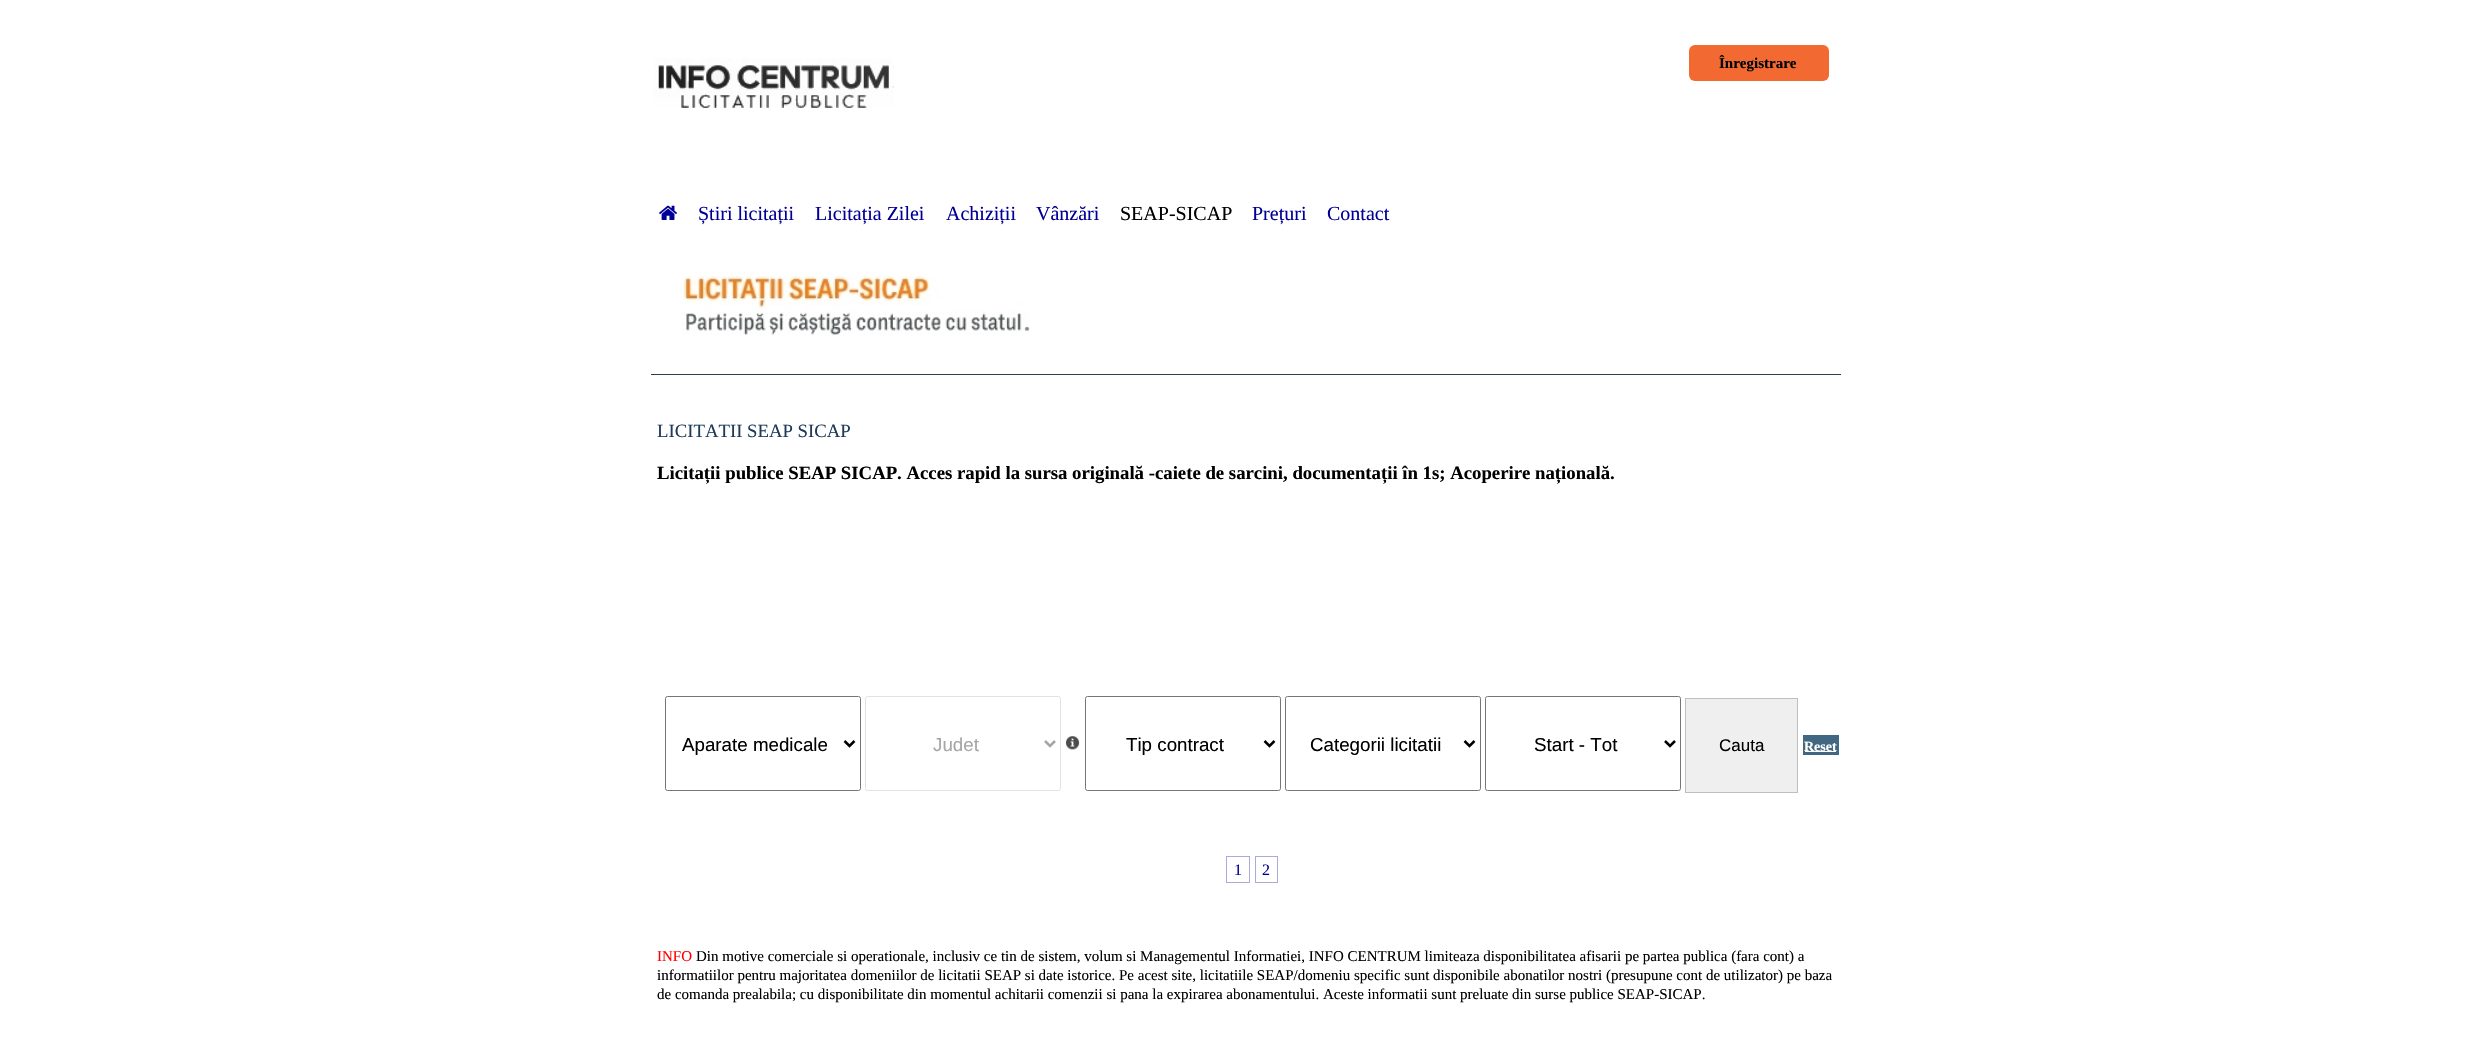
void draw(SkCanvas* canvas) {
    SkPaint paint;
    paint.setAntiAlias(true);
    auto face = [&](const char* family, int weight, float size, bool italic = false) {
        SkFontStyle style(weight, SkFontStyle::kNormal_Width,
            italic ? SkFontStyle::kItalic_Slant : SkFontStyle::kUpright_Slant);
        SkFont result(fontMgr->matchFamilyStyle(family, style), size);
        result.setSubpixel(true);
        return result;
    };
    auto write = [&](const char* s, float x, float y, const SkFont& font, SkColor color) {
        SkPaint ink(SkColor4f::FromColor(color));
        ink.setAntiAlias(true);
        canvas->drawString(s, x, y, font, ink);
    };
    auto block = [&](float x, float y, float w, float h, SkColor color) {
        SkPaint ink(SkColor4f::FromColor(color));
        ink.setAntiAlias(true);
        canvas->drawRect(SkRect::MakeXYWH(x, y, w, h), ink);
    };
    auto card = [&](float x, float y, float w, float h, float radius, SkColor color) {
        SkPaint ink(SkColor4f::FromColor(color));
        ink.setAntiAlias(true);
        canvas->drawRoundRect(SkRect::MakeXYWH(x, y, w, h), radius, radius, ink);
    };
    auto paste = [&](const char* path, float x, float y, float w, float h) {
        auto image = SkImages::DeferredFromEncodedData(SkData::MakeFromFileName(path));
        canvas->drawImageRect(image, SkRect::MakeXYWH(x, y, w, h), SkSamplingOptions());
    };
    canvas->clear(SK_ColorWHITE);
    paste("pic1.png", 653, 58, 241, 50);
    card(1689, 45, 140, 36, 6, SkColorSetRGB(242, 106, 50));
    auto kFont1 = face("Liberation Serif", 700, 15);
    write("Înregistrare", 1719, 68, kFont1, SK_ColorBLACK);
    paste("pic2.png", 659, 205, 18, 15);
    auto kFont2 = face("Liberation Serif", 400, 20);
    write("Știri licitații", 698, 220, kFont2, SkColorSetRGB(0, 0, 153));
    write("Licitația Zilei", 815, 220, kFont2, SkColorSetRGB(0, 0, 153));
    write("Achiziții", 946, 220, kFont2, SkColorSetRGB(0, 0, 153));
    write("Vânzări", 1036, 220, kFont2, SkColorSetRGB(0, 0, 153));
    write("SEAP-SICAP", 1120, 220, kFont2, SK_ColorBLACK);
    write("Prețuri", 1252, 220, kFont2, SkColorSetRGB(0, 0, 153));
    write("Contact", 1327, 220, kFont2, SkColorSetRGB(0, 0, 153));
    paste("pic3.png", 682, 275, 348, 60);
    block(651, 374, 1190, 1, SkColorSetRGB(48, 59, 79));
    auto kFont3 = face("Liberation Serif", 400, 18.75f);
    write("LICITATII SEAP SICAP", 657, 437, kFont3, SkColorSetRGB(30, 59, 89));
    auto kFont4 = face("Liberation Serif", 700, 18.75f);
    write("Licitații publice SEAP SICAP. Acces rapid la sursa originală -caiete de sarcini, documentații în 1s; Acoperire națională.", 657, 479, kFont4, SK_ColorBLACK);
    paint.setStyle(SkPaint::kStroke_Style);
    paint.setStrokeWidth(1);
    paint.setColor(SkColorSetRGB(118, 118, 118));
    canvas->drawRoundRect(SkRect::MakeXYWH(665.5f, 696.5f, 195, 94), 2, 2, paint);
    paint.setStrokeWidth(2.5f);
    paint.setColor(SK_ColorBLACK);
    canvas->drawPath(SkPathBuilder().moveTo(844.5f, 741).lineTo(849.5f, 746).lineTo(854.5f, 741).detach(), paint);
    auto kFont5 = face("Liberation Sans", 400, 18.75f);
    write("Aparate medicale", 682, 751, kFont5, SK_ColorBLACK);
    paint.setStrokeWidth(1);
    paint.setColor(SkColorSetRGB(226, 226, 226));
    canvas->drawRoundRect(SkRect::MakeXYWH(865.5f, 696.5f, 195, 94), 2, 2, paint);
    paint.setStrokeWidth(2.5f);
    paint.setColor(SkColorSetRGB(166, 166, 166));
    canvas->drawPath(SkPathBuilder().moveTo(1045, 741).lineTo(1050, 746).lineTo(1055, 741).detach(), paint);
    write("Judet", 933, 751, kFont5, SkColorSetRGB(166, 166, 166));
    paste("pic4.png", 1066, 736, 14, 14);
    paint.setStrokeWidth(1);
    paint.setColor(SkColorSetRGB(118, 118, 118));
    canvas->drawRoundRect(SkRect::MakeXYWH(1085.5f, 696.5f, 195, 94), 2, 2, paint);
    paint.setStrokeWidth(2.5f);
    paint.setColor(SK_ColorBLACK);
    canvas->drawPath(SkPathBuilder().moveTo(1264.5f, 741).lineTo(1269.5f, 746).lineTo(1274.5f, 741).detach(), paint);
    write("Tip contract", 1126, 751, kFont5, SK_ColorBLACK);
    paint.setStrokeWidth(1);
    paint.setColor(SkColorSetRGB(118, 118, 118));
    canvas->drawRoundRect(SkRect::MakeXYWH(1285.5f, 696.5f, 195, 94), 2, 2, paint);
    paint.setStrokeWidth(2.5f);
    paint.setColor(SK_ColorBLACK);
    canvas->drawPath(SkPathBuilder().moveTo(1464.5f, 741).lineTo(1469.5f, 746).lineTo(1474.5f, 741).detach(), paint);
    write("Categorii licitatii", 1310, 751, kFont5, SK_ColorBLACK);
    paint.setStrokeWidth(1);
    paint.setColor(SkColorSetRGB(118, 118, 118));
    canvas->drawRoundRect(SkRect::MakeXYWH(1485.5f, 696.5f, 195, 94), 2, 2, paint);
    paint.setStrokeWidth(2.5f);
    paint.setColor(SK_ColorBLACK);
    canvas->drawPath(SkPathBuilder().moveTo(1665, 741).lineTo(1670, 746).lineTo(1675, 741).detach(), paint);
    write("Start - Tot", 1534, 751, kFont5, SK_ColorBLACK);
    paint.setStyle(SkPaint::kFill_Style);
    paint.setColor(SkColorSetRGB(239, 239, 239));
    canvas->drawRect(SkRect::MakeXYWH(1685.5f, 698.5f, 112, 94), paint);
    paint.setStyle(SkPaint::kStroke_Style);
    paint.setStrokeWidth(1);
    paint.setColor(SkColorSetRGB(191, 191, 191));
    canvas->drawRect(SkRect::MakeXYWH(1685.5f, 698.5f, 112, 94), paint);
    auto kFont6 = face("Liberation Sans", 400, 17);
    write("Cauta", 1719, 751, kFont6, SK_ColorBLACK);
    block(1803, 735, 36, 20, SkColorSetRGB(65, 103, 131));
    block(1805, 751, 31, 1, SK_ColorWHITE);
    auto kFont7 = face("Liberation Serif", 700, 14);
    write("Reset", 1804, 751, kFont7, SK_ColorWHITE);
    paint.setColor(SkColorSetRGB(170, 170, 221));
    canvas->drawRect(SkRect::MakeXYWH(1226.5f, 856.5f, 23, 26), paint);
    auto kFont8 = face("Liberation Serif", 400, 16);
    write("1", 1234, 875, kFont8, SkColorSetRGB(0, 0, 153));
    canvas->drawRect(SkRect::MakeXYWH(1255.5f, 856.5f, 22, 26), paint);
    write("2", 1262, 875, kFont8, SkColorSetRGB(0, 0, 153));
    auto kFont9 = face("Liberation Serif", 400, 15);
    write("INFO", 657, 961, kFont9, SkColorSetRGB(255, 0, 0));
    write("Din motive comerciale si operationale, inclusiv ce tin de sistem, volum si Managementul Informatiei, INFO CENTRUM limiteaza disponibilitatea afisarii pe partea publica (fara cont) a", 696, 961, kFont9, SK_ColorBLACK);
    write("informatiilor pentru majoritatea domeniilor de licitatii SEAP si date istorice. Pe acest site, licitatiile SEAP/domeniu specific sunt disponibile abonatilor nostri (presupune cont de utilizator) pe baza", 657, 980, kFont9, SK_ColorBLACK);
    write("de comanda prealabila; cu disponibilitate din momentul achitarii comenzii si pana la expirarea abonamentului. Aceste informatii sunt preluate din surse publice SEAP-SICAP.", 657, 999, kFont9, SK_ColorBLACK);
}
